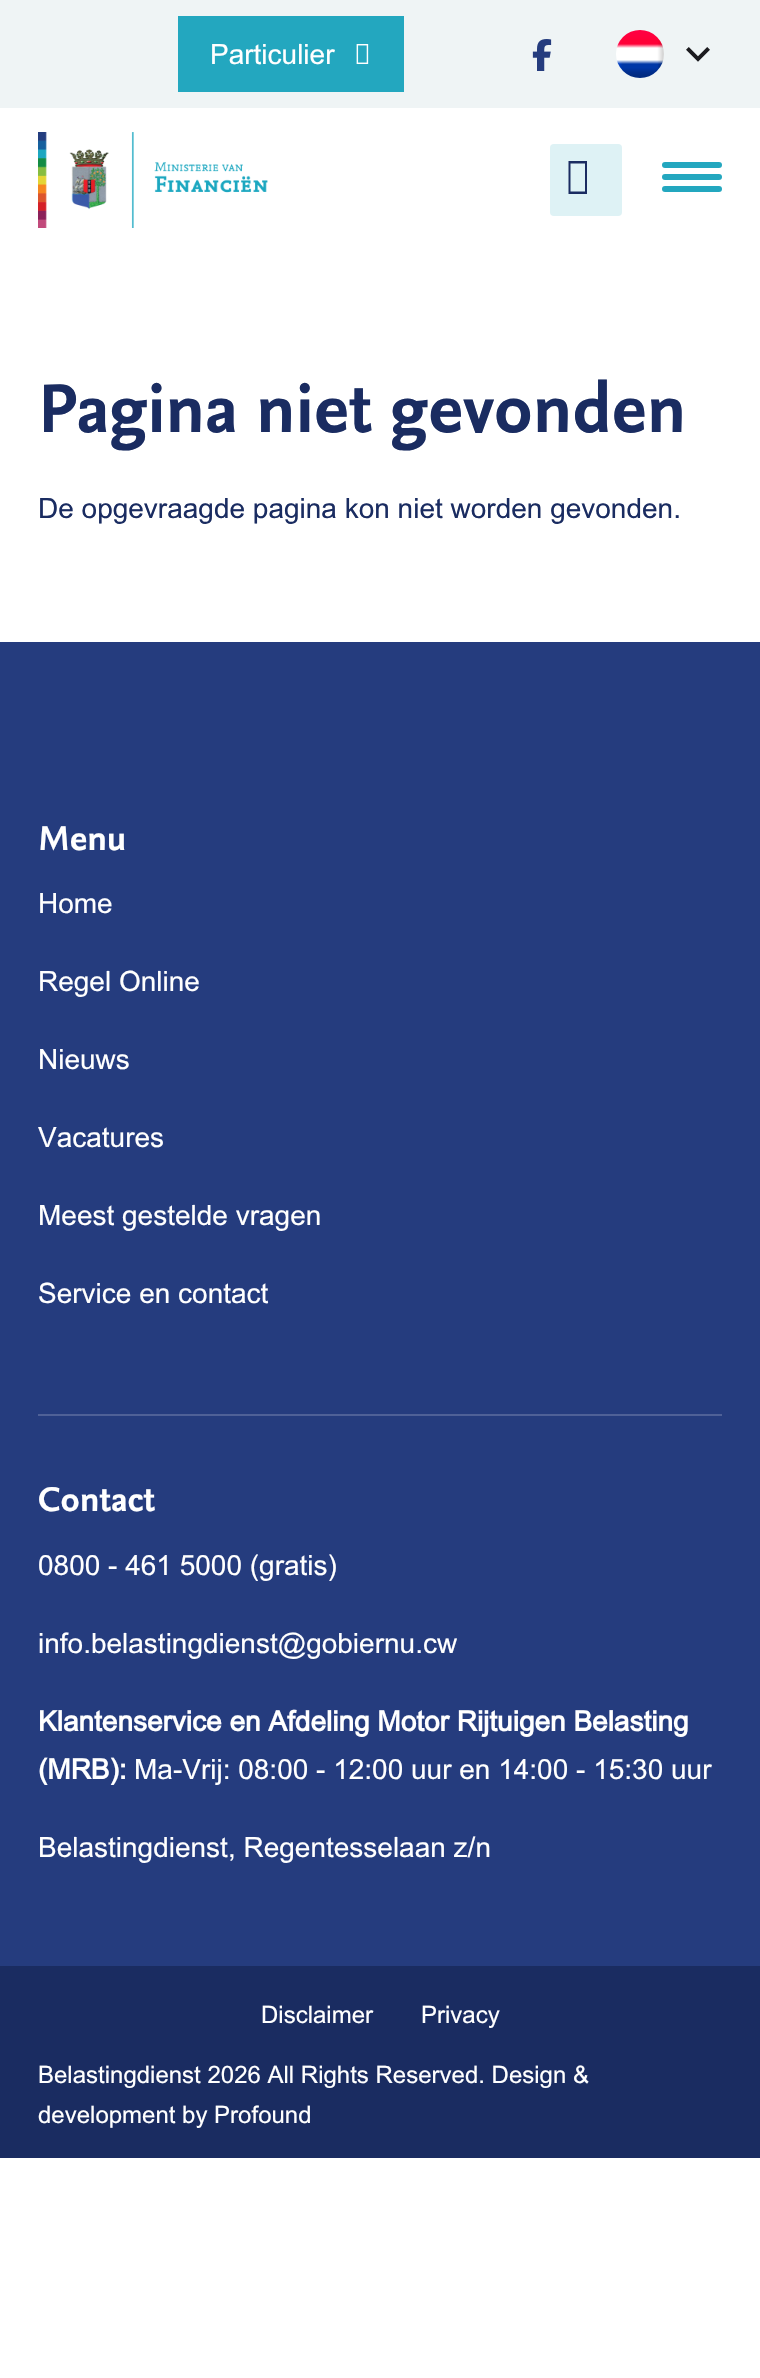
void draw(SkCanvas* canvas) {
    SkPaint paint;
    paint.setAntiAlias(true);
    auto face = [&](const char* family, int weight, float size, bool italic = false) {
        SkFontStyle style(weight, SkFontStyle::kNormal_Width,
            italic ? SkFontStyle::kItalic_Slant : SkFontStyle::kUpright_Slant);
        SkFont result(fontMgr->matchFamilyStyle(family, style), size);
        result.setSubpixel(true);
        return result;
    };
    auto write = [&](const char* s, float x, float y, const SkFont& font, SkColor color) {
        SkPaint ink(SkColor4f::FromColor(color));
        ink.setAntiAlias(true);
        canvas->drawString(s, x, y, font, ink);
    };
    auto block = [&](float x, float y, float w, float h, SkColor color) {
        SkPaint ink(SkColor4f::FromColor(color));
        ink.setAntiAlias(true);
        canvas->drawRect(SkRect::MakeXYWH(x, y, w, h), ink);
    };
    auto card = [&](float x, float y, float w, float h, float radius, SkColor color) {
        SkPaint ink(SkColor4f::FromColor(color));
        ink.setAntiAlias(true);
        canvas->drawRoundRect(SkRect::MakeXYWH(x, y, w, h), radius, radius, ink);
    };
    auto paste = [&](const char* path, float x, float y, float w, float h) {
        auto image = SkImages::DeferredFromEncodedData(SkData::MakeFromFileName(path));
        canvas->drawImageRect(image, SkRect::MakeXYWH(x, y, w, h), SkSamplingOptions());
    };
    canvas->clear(SK_ColorWHITE);
    block(0, 0, 760, 108, SkColorSetRGB(239, 244, 245));
    block(178, 16, 226, 76, SkColorSetRGB(35, 167, 191));
    auto kFont1 = face("Arial", 400, 28);
    write("Particulier", 210, 64, kFont1, SK_ColorWHITE);
    paste("pic1.png", 356, 44, 13, 20);
    paste("pic2.png", 532, 39, 20, 32);
    paste("pic3.png", 616, 30, 48, 48);
    paste("pic4.png", 686, 47, 24, 15);
    paste("pic5.png", 38, 132, 230, 96);
    card(550, 144, 72, 72, 4, SkColorSetRGB(222, 242, 245));
    paint.setColor(SkColorSetRGB(26, 44, 97));
    canvas->drawPath(SkPathBuilder().moveTo(568.5f, 194).lineTo(568.5f, 161).lineTo(587, 161).lineTo(587, 194).close().moveTo(570.5f, 191.5f).lineTo(585, 191.5f).lineTo(585, 163.5f).lineTo(570.5f, 163.5f).close().detach(), paint);
    card(662, 162, 60, 6, 3, SkColorSetRGB(35, 167, 191));
    card(662, 174, 60, 6, 3, SkColorSetRGB(35, 167, 191));
    card(662, 186, 60, 6, 3, SkColorSetRGB(35, 167, 191));
    auto kFont2 = face("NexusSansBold", 700, 72);
    write("Pagina niet gevonden", 38, 432, kFont2, SkColorSetRGB(26, 44, 97));
    write("De opgevraagde pagina kon niet worden gevonden.", 38, 518, kFont1, SkColorSetRGB(26, 44, 97));
    block(0, 642, 760, 1324, SkColorSetRGB(37, 60, 126));
    block(38, 1414, 684, 2, SkColorSetRGB(79, 97, 151));
    auto kFont3 = face("NexusSansBold", 700, 36);
    write("Menu", 38, 850, kFont3, SK_ColorWHITE);
    write("Home", 38, 913, kFont1, SK_ColorWHITE);
    write("Regel Online", 38, 991, kFont1, SK_ColorWHITE);
    write("Nieuws", 38, 1069, kFont1, SK_ColorWHITE);
    write("Vacatures", 38, 1147, kFont1, SK_ColorWHITE);
    write("Meest gestelde vragen", 38, 1225, kFont1, SK_ColorWHITE);
    write("Service en contact", 38, 1303, kFont1, SK_ColorWHITE);
    write("Contact", 38, 1511, kFont3, SK_ColorWHITE);
    write("0800 - 461 5000 (gratis)", 38, 1575, kFont1, SK_ColorWHITE);
    write("info.belastingdienst@gobiernu.cw", 38, 1653, kFont1, SK_ColorWHITE);
    auto kFont4 = face("Arial", 700, 28);
    write("Klantenservice en Afdeling Motor Rijtuigen Belasting", 38, 1731, kFont4, SK_ColorWHITE);
    write("(MRB):", 38, 1779, kFont4, SK_ColorWHITE);
    write("Ma-Vrij: 08:00 - 12:00 uur en 14:00 - 15:30 uur", 134, 1779, kFont1, SK_ColorWHITE);
    write("Belastingdienst, Regentesselaan z/n", 38, 1857, kFont1, SK_ColorWHITE);
    block(0, 1966, 760, 192, SkColorSetRGB(26, 44, 97));
    auto kFont5 = face("Arial", 400, 24);
    write("Disclaimer", 261, 2023, kFont5, SK_ColorWHITE);
    write("Privacy", 421, 2023, kFont5, SK_ColorWHITE);
    write("Belastingdienst 2026 All Rights Reserved. Design &", 38, 2083, kFont5, SK_ColorWHITE);
    write("development by Profound", 38, 2123, kFont5, SK_ColorWHITE);
}
